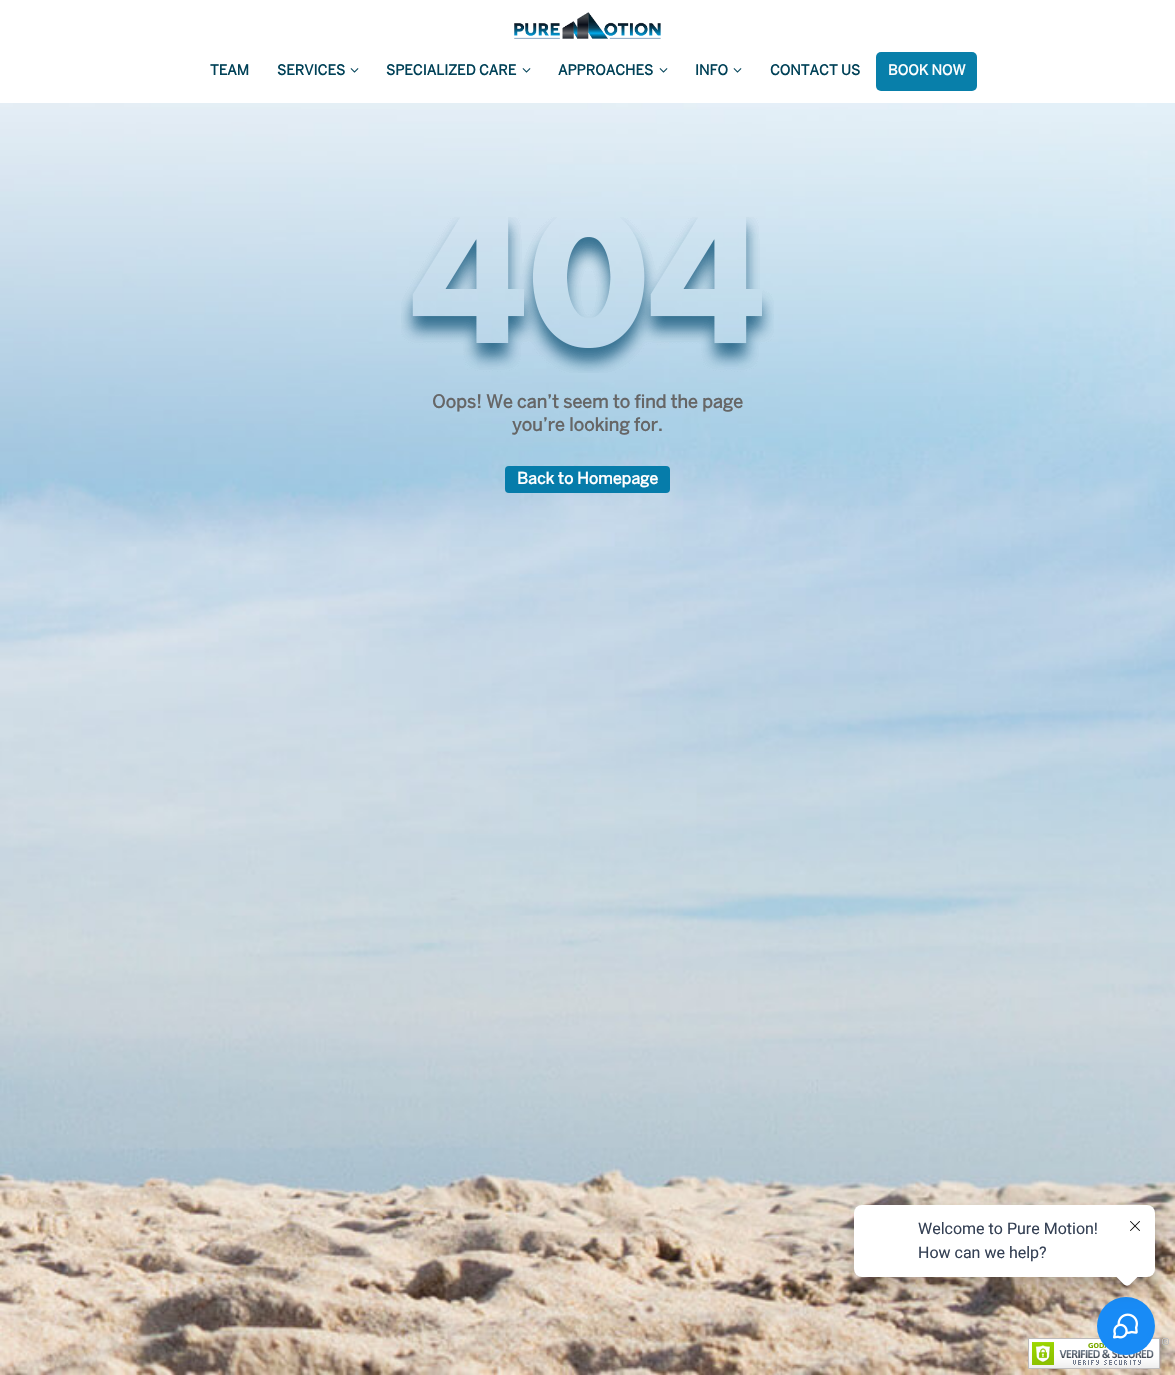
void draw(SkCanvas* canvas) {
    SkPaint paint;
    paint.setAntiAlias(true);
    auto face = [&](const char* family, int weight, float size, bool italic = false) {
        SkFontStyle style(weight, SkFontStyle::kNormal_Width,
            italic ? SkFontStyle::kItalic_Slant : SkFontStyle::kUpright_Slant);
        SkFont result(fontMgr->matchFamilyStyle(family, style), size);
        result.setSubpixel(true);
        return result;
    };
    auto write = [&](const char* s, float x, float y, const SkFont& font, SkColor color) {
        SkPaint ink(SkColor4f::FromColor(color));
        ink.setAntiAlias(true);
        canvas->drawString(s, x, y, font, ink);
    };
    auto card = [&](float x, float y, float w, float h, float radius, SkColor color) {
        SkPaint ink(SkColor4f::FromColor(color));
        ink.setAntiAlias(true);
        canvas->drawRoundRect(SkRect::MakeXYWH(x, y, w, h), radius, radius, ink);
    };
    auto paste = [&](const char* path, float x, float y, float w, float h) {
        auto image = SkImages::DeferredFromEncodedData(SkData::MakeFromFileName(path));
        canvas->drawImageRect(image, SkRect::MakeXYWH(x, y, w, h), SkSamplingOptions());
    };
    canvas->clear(SK_ColorWHITE);
    paste("pic1.png", 514, 12, 147, 27);
    auto kFont1 = face("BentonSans", 700, 14);
    write("TEAM", 210, 75, kFont1, SkColorSetRGB(0, 65, 87));
    write("SERVICES", 277, 75, kFont1, SkColorSetRGB(0, 65, 87));
    paste("pic2.png", 350, 68, 9, 5);
    write("SPECIALIZED CARE", 386, 75, kFont1, SkColorSetRGB(0, 65, 87));
    paste("pic2.png", 522, 68, 9, 5);
    write("APPROACHES", 558, 75, kFont1, SkColorSetRGB(0, 65, 87));
    paste("pic2.png", 659, 68, 9, 5);
    write("INFO", 695, 75, kFont1, SkColorSetRGB(0, 65, 87));
    paste("pic2.png", 733, 68, 9, 5);
    write("CONTACT US", 770, 75, kFont1, SkColorSetRGB(0, 65, 87));
    card(876, 52, 101, 39, 5, SkColorSetRGB(8, 127, 170));
    write("BOOK NOW", 888, 75, kFont1, SK_ColorWHITE);
    paste("pic3.png", 0, 103, 1175, 1272);
    paste("pic4.png", 401, 217, 373, 156);
    auto kFont2 = face("BentonSans", 700, 18);
    write("Oops! We can’t seem to find the page", 432, 408, kFont2, SkColorSetRGB(102, 102, 102));
    write("you’re looking for.", 512, 431, kFont2, SkColorSetRGB(102, 102, 102));
    card(505, 466, 165, 27, 4, SkColorSetRGB(6, 124, 170));
    auto kFont3 = face("BentonSans", 700, 16);
    write("Back to Homepage", 517, 484, kFont3, SK_ColorWHITE);
    paste("pic7.png", 1028, 1338, 141, 31);
    paint.setColor(SkColorSetRGB(24, 139, 246));
    canvas->drawCircle(1126, 1326, 29, paint);
    paste("pic6.png", 1113, 1313, 25, 26);
    paint.setColor(SkColorSetARGB(61, 0, 0, 0));
    paint.setMaskFilter(SkMaskFilter::MakeBlur(kNormal_SkBlurStyle, 10));
    canvas->drawRoundRect(SkRect::MakeXYWH(854, 1213, 301, 72), 8, 8, paint);
    paint.setMaskFilter(nullptr);
    card(854, 1205, 301, 72, 8, SK_ColorWHITE);
    auto kFont4 = face("Roboto", 400, 16);
    write("Welcome to Pure Motion!", 918, 1234, kFont4, SkColorSetRGB(52, 64, 84));
    write("How can we help?", 918, 1258, kFont4, SkColorSetRGB(52, 64, 84));
    paint.setColor(SK_ColorWHITE);
    canvas->drawPath(SkPathBuilder().moveTo(1130, 1261.5f).lineTo(1138.5f, 1270).cubicTo(1140, 1271.5f, 1140, 1274.5f, 1138.5f, 1276).lineTo(1130, 1284.5f).cubicTo(1128.5f, 1286, 1125.5f, 1286, 1124, 1284.5f).lineTo(1115.5f, 1276).cubicTo(1114, 1274.5f, 1114, 1271.5f, 1115.5f, 1270).lineTo(1124, 1261.5f).cubicTo(1125.5f, 1260, 1128.5f, 1260, 1130, 1261.5f).close().detach(), paint);
    paste("pic5.png", 1130, 1221, 10, 10);
}
